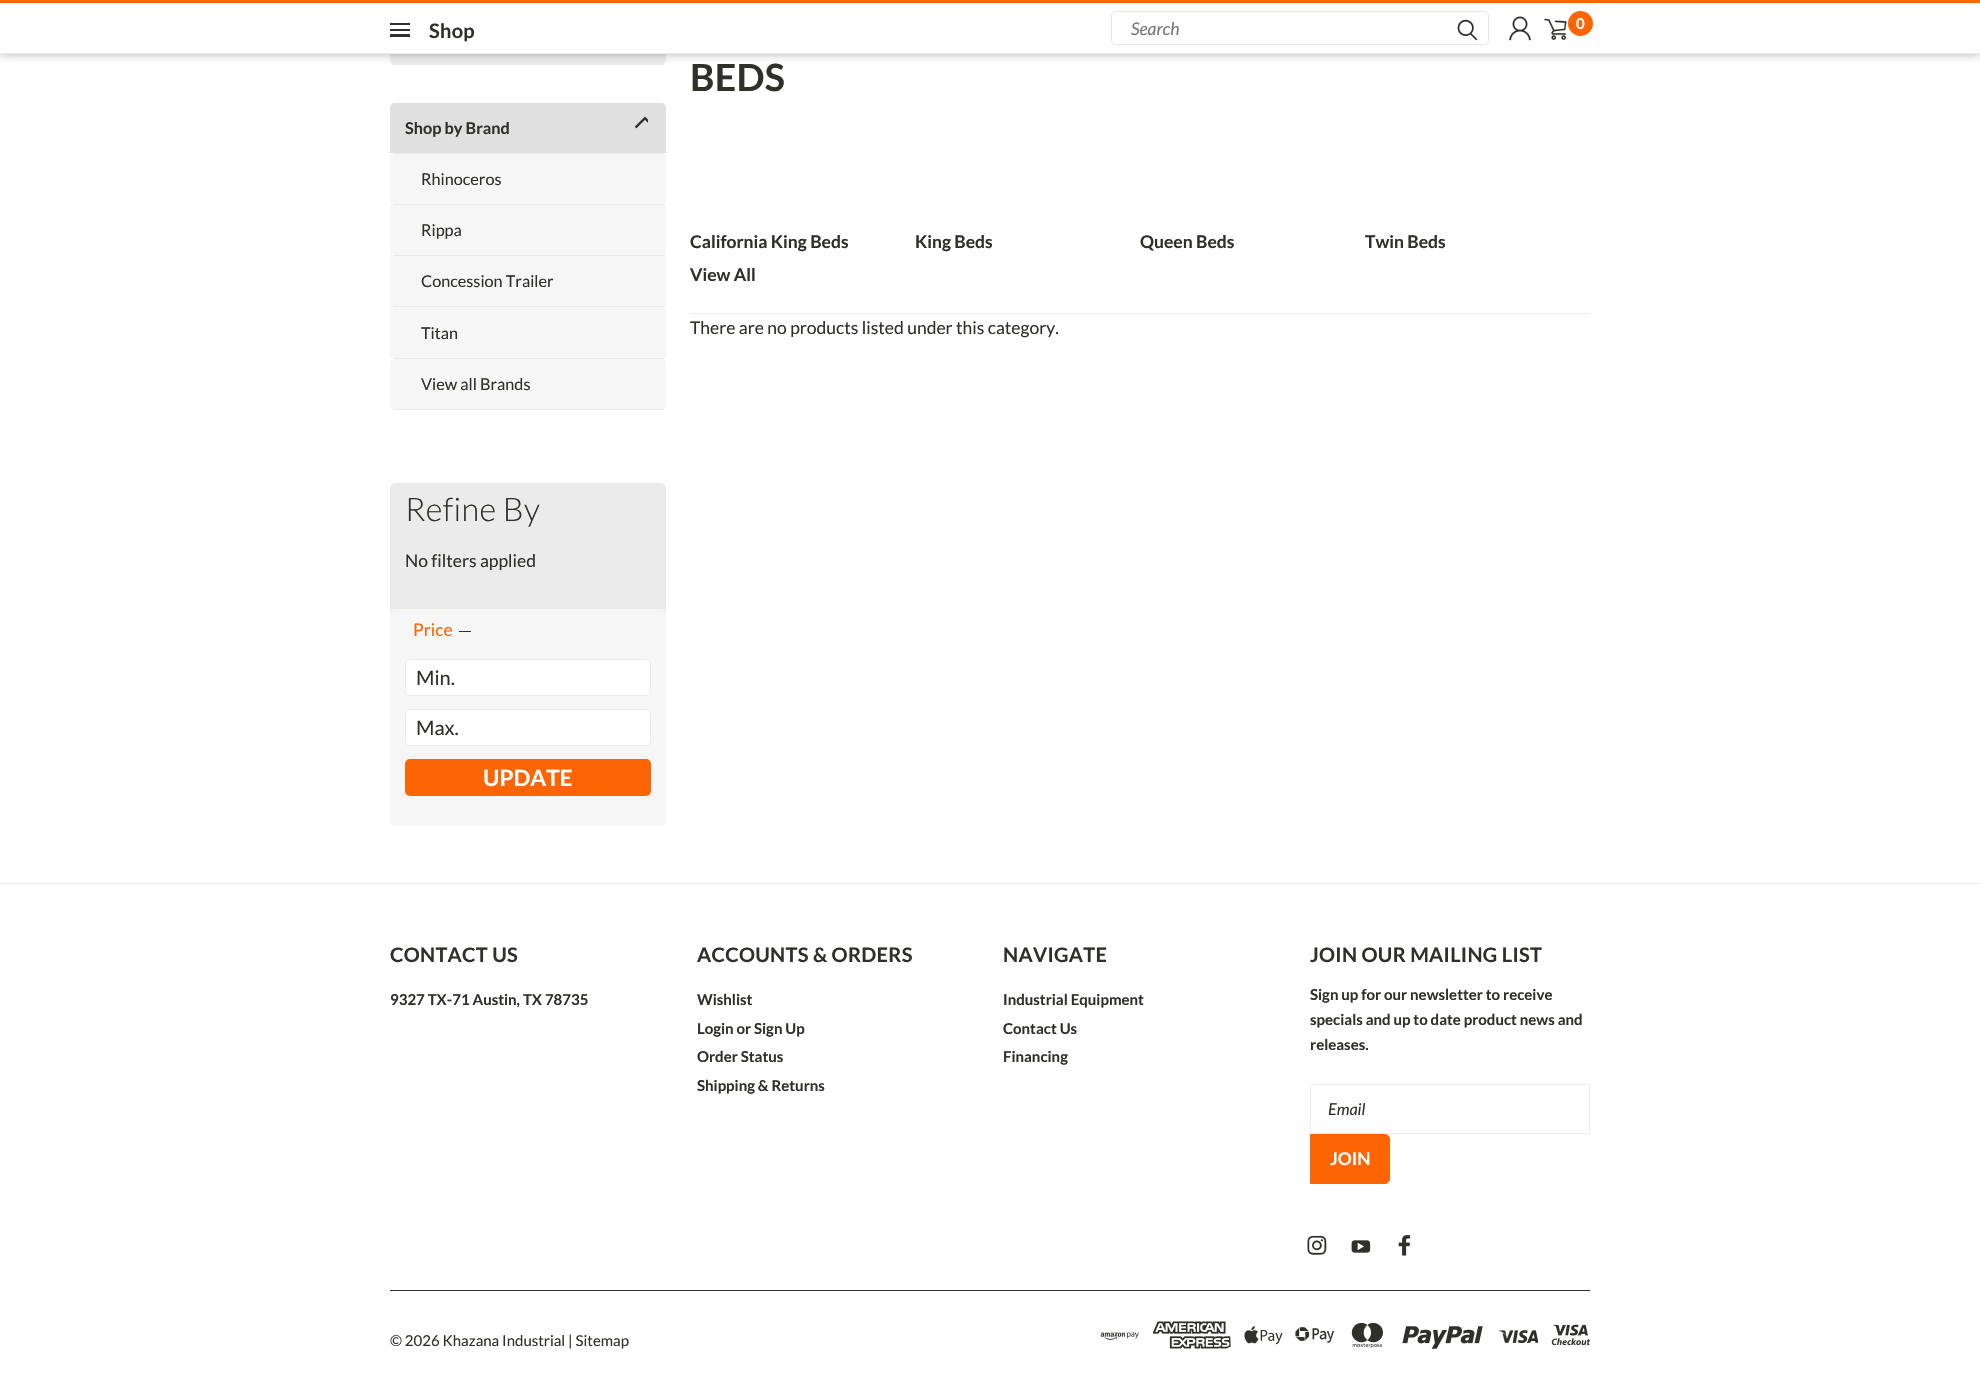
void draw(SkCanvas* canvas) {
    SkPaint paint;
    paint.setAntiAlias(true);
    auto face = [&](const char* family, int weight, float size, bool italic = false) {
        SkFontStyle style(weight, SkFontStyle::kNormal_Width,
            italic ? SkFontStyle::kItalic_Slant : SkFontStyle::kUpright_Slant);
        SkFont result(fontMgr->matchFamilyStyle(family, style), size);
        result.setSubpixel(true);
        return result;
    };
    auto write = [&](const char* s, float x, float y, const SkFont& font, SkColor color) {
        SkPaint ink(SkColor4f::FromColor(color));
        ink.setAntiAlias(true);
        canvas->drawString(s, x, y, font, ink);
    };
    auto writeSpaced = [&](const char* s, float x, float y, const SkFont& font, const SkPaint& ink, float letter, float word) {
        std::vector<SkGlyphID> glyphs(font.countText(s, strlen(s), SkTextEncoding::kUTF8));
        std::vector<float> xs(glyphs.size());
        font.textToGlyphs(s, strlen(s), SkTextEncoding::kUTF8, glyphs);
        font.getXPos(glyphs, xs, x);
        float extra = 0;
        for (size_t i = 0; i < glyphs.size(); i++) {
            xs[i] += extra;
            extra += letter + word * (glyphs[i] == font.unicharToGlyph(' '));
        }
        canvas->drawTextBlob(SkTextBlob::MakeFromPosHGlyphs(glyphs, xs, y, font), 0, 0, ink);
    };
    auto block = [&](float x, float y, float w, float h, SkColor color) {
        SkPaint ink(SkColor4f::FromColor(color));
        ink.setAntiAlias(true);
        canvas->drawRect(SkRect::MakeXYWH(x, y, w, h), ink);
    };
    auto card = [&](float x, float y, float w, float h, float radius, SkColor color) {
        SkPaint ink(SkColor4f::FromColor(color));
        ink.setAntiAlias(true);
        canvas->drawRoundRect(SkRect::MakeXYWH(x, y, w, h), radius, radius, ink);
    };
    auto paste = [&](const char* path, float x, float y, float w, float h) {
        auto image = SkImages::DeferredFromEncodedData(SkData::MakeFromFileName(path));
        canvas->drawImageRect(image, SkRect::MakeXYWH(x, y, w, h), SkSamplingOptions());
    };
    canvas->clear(SK_ColorWHITE);
    card(390, 14, 276, 51, 5, SkColorSetRGB(235, 235, 235));
    block(393, 64, 271, 1, SkColorSetRGB(235, 235, 235));
    card(390, 14, 235, 50, 5, SkColorSetRGB(235, 235, 235));
    paint.setColor(SkColorSetARGB(77, 0, 0, 0));
    paint.setMaskFilter(SkMaskFilter::MakeBlur(kNormal_SkBlurStyle, 4.5f));
    canvas->drawRect(SkRect::MakeXYWH(0, 0, 1980, 54), paint);
    paint.setMaskFilter(nullptr);
    block(0, 3, 1980, 50, SK_ColorWHITE);
    block(0, 0, 1980, 3, SkColorSetRGB(253, 100, 4));
    block(0, 53, 1980, 1, SkColorSetRGB(235, 235, 235));
    block(390, 23, 20, 2, SkColorSetRGB(47, 47, 43));
    block(390, 29, 20, 2, SkColorSetRGB(47, 47, 43));
    block(390, 34, 20, 3, SkColorSetRGB(47, 47, 43));
    auto kFont1 = face("Lato", 700, 20);
    paint.setColor(SkColorSetRGB(47, 47, 43));
    writeSpaced("Shop", 429, 38, kFont1, paint, 0.3f, 0);
    paint.setStyle(SkPaint::kStroke_Style);
    paint.setStrokeWidth(1);
    paint.setColor(SkColorSetRGB(229, 229, 229));
    canvas->drawRoundRect(SkRect::MakeXYWH(1111.5f, 11.5f, 377, 33), 4.5f, 4.5f, paint);
    auto kFont2 = face("Lato", 400, 17.5f, true);
    write("Search", 1131, 35, kFont2, SkColorSetRGB(118, 118, 118));
    paste("pic1.png", 1457, 19, 21, 22);
    paste("pic2.png", 1509, 16, 22, 25);
    paste("pic3.png", 1544, 18, 23, 22);
    paint.setStyle(SkPaint::kFill_Style);
    paint.setColor(SkColorSetRGB(253, 100, 4));
    canvas->drawCircle(1580.5f, 23.5f, 12.5f, paint);
    auto kFont3 = face("Lato", 700, 15);
    write("0", 1576, 29, kFont3, SK_ColorWHITE);
    block(393, 153, 271, 1, SkColorSetRGB(235, 235, 235));
    paint.setColor(SkColorSetRGB(224, 224, 224));
    canvas->drawPath(SkPathBuilder().moveTo(395, 103).lineTo(661, 103).cubicTo(664, 103, 666, 105, 666, 108).lineTo(666, 153).lineTo(390, 153).lineTo(390, 108).cubicTo(390, 105, 392, 103, 395, 103).close().detach(), paint);
    auto kFont4 = face("Lato", 700, 16.25f);
    write("Shop by Brand", 405, 134, kFont4, SkColorSetRGB(47, 47, 43));
    paste("pic4.png", 634, 116, 14, 13);
    block(393, 204, 271, 1, SkColorSetRGB(235, 235, 235));
    block(390, 154, 276, 50, SkColorSetRGB(246, 246, 246));
    auto kFont5 = face("Lato", 400, 16.25f);
    write("Rhinoceros", 421, 185, kFont5, SkColorSetRGB(47, 47, 43));
    block(393, 255, 271, 1, SkColorSetRGB(235, 235, 235));
    block(390, 205, 276, 50, SkColorSetRGB(246, 246, 246));
    write("Rippa", 421, 236, kFont5, SkColorSetRGB(47, 47, 43));
    card(390, 256, 276, 52, 5, SkColorSetRGB(246, 246, 246));
    block(393, 306, 271, 1, SkColorSetRGB(235, 235, 235));
    block(390, 256, 276, 50, SkColorSetRGB(246, 246, 246));
    write("Concession Trailer", 421, 287, kFont5, SkColorSetRGB(47, 47, 43));
    block(393, 358, 271, 1, SkColorSetRGB(235, 235, 235));
    block(390, 308, 276, 50, SkColorSetRGB(246, 246, 246));
    write("Titan", 421, 339, kFont5, SkColorSetRGB(47, 47, 43));
    card(390, 359, 276, 51, 5, SkColorSetRGB(246, 246, 246));
    block(393, 409, 271, 1, SkColorSetRGB(235, 235, 235));
    write("View all Brands", 421, 390, kFont5, SkColorSetRGB(47, 47, 43));
    card(390, 483, 276, 343, 5, SkColorSetRGB(235, 235, 235));
    auto kFont6 = face("Lato", 300, 32.5f);
    paint.setColor(SkColorSetRGB(47, 47, 43));
    writeSpaced("Refine By", 405, 521, kFont6, paint, 0.3f, 0);
    auto kFont7 = face("Lato", 400, 17.5f);
    write("No filters applied", 405, 567, kFont7, SkColorSetRGB(47, 47, 43));
    card(390, 609, 276, 217, 5, SkColorSetRGB(246, 246, 246));
    write("Price", 413, 636, kFont7, SkColorSetRGB(253, 100, 4));
    block(459, 631, 12, 1, SkColorSetRGB(47, 47, 43));
    paint.setColor(SK_ColorWHITE);
    canvas->drawRoundRect(SkRect::MakeXYWH(405.5f, 659.5f, 245, 36), 4.5f, 4.5f, paint);
    paint.setStyle(SkPaint::kStroke_Style);
    paint.setColor(SkColorSetRGB(235, 235, 235));
    canvas->drawRoundRect(SkRect::MakeXYWH(405.5f, 659.5f, 245, 36), 4.5f, 4.5f, paint);
    auto kFont8 = face("Lato", 400, 20);
    write("Min.", 416, 685, kFont8, SkColorSetRGB(47, 47, 43));
    paint.setStyle(SkPaint::kFill_Style);
    paint.setColor(SK_ColorWHITE);
    canvas->drawRoundRect(SkRect::MakeXYWH(405.5f, 709.5f, 245, 36), 4.5f, 4.5f, paint);
    paint.setStyle(SkPaint::kStroke_Style);
    paint.setColor(SkColorSetRGB(235, 235, 235));
    canvas->drawRoundRect(SkRect::MakeXYWH(405.5f, 709.5f, 245, 36), 4.5f, 4.5f, paint);
    write("Max.", 416, 735, kFont8, SkColorSetRGB(47, 47, 43));
    card(405, 759, 246, 37, 5, SkColorSetRGB(253, 100, 4));
    auto kFont9 = face("Lato", 700, 22.5f);
    write("UPDATE", 483, 786, kFont9, SK_ColorWHITE);
    auto kFont10 = face("Lato", 700, 37.5f);
    paint.setStyle(SkPaint::kFill_Style);
    paint.setColor(SkColorSetRGB(47, 47, 43));
    writeSpaced("BEDS", 690, 91, kFont10, paint, 0.3f, 0);
    block(690, 313, 900, 1, SkColorSetRGB(235, 235, 235));
    auto kFont11 = face("Lato", 700, 17.5f);
    write("California King Beds", 690, 248, kFont11, SkColorSetRGB(47, 47, 43));
    write("King Beds", 915, 248, kFont11, SkColorSetRGB(47, 47, 43));
    write("Queen Beds", 1140, 248, kFont11, SkColorSetRGB(47, 47, 43));
    write("Twin Beds", 1365, 248, kFont11, SkColorSetRGB(47, 47, 43));
    write("View All", 690, 281, kFont11, SkColorSetRGB(47, 47, 43));
    write("There are no products listed under this category.", 690, 334, kFont7, SkColorSetRGB(47, 47, 43));
    block(0, 883, 1980, 1, SkColorSetRGB(235, 235, 235));
    writeSpaced("CONTACT US", 390, 962, kFont1, paint, 0.3f, 0);
    write("9327 TX-71 Austin, TX 78735", 390, 1005, kFont3, SkColorSetRGB(47, 47, 43));
    writeSpaced("ACCOUNTS & ORDERS", 697, 962, kFont1, paint, 0.3f, 0);
    write("Wishlist", 697, 1005, kFont3, SkColorSetRGB(47, 47, 43));
    write("Login or", 697, 1034, kFont3, SkColorSetRGB(47, 47, 43));
    write("Sign Up", 754, 1034, kFont3, SkColorSetRGB(47, 47, 43));
    write("Order Status", 697, 1062, kFont3, SkColorSetRGB(47, 47, 43));
    write("Shipping & Returns", 697, 1091, kFont3, SkColorSetRGB(47, 47, 43));
    writeSpaced("NAVIGATE", 1003, 962, kFont1, paint, 0.3f, 0);
    write("Industrial Equipment", 1003, 1005, kFont3, SkColorSetRGB(47, 47, 43));
    write("Contact Us", 1003, 1034, kFont3, SkColorSetRGB(47, 47, 43));
    write("Financing", 1003, 1062, kFont3, SkColorSetRGB(47, 47, 43));
    writeSpaced("JOIN OUR MAILING LIST", 1310, 962, kFont1, paint, 0.3f, 0);
    write("Sign up for our newsletter to receive", 1310, 1000, kFont3, SkColorSetRGB(47, 47, 43));
    write("specials and up to date product news and", 1310, 1025, kFont3, SkColorSetRGB(47, 47, 43));
    write("releases.", 1310, 1050, kFont3, SkColorSetRGB(47, 47, 43));
    paint.setStyle(SkPaint::kStroke_Style);
    paint.setColor(SkColorSetRGB(235, 235, 235));
    canvas->drawPath(SkPathBuilder().moveTo(1315, 1084.5f).lineTo(1589.5f, 1084.5f).lineTo(1589.5f, 1133.5f).lineTo(1315, 1133.5f).cubicTo(1312.5f, 1133.5f, 1310.5f, 1131.5f, 1310.5f, 1129).lineTo(1310.5f, 1089).cubicTo(1310.5f, 1086.5f, 1312.5f, 1084.5f, 1315, 1084.5f).close().detach(), paint);
    auto kFont12 = face("Lato", 400, 16.25f, true);
    write("Email", 1328, 1115, kFont12, SkColorSetRGB(47, 47, 43));
    paint.setStyle(SkPaint::kFill_Style);
    paint.setColor(SkColorSetRGB(253, 100, 4));
    canvas->drawPath(SkPathBuilder().moveTo(1310.5f, 1134.5f).lineTo(1385, 1134.5f).cubicTo(1387.5f, 1134.5f, 1389.5f, 1136.5f, 1389.5f, 1139).lineTo(1389.5f, 1179).cubicTo(1389.5f, 1181.5f, 1387.5f, 1183.5f, 1385, 1183.5f).lineTo(1310.5f, 1183.5f).close().detach(), paint);
    paint.setStyle(SkPaint::kStroke_Style);
    canvas->drawPath(SkPathBuilder().moveTo(1310.5f, 1134.5f).lineTo(1385, 1134.5f).cubicTo(1387.5f, 1134.5f, 1389.5f, 1136.5f, 1389.5f, 1139).lineTo(1389.5f, 1179).cubicTo(1389.5f, 1181.5f, 1387.5f, 1183.5f, 1385, 1183.5f).lineTo(1310.5f, 1183.5f).close().detach(), paint);
    write("JOIN", 1330, 1165, kFont11, SK_ColorWHITE);
    paste("pic5.png", 1307, 1235, 20, 20);
    paste("pic6.png", 1351, 1240, 20, 13);
    paste("pic7.png", 1398, 1235, 13, 21);
    block(390, 1290, 1200, 1, SkColorSetRGB(47, 47, 43));
    auto kFont13 = face("Lato", 400, 15);
    write("© 2026 Khazana Industrial | Sitemap", 390, 1346, kFont13, SkColorSetRGB(47, 47, 43));
    paste("pic8.png", 1100, 1332, 39, 8);
    paste("pic9.png", 1153, 1321, 78, 28);
    paste("pic10.png", 1244, 1326, 39, 19);
    paste("pic11.png", 1295, 1327, 39, 16);
    paste("pic12.png", 1351, 1322, 32, 26);
    paste("pic13.png", 1402, 1326, 81, 23);
    paste("pic14.png", 1499, 1330, 39, 13);
    paste("pic15.png", 1551, 1324, 39, 22);
    block(1978, 1398, 2, 1, SkColorSetRGB(245, 245, 245));
}
